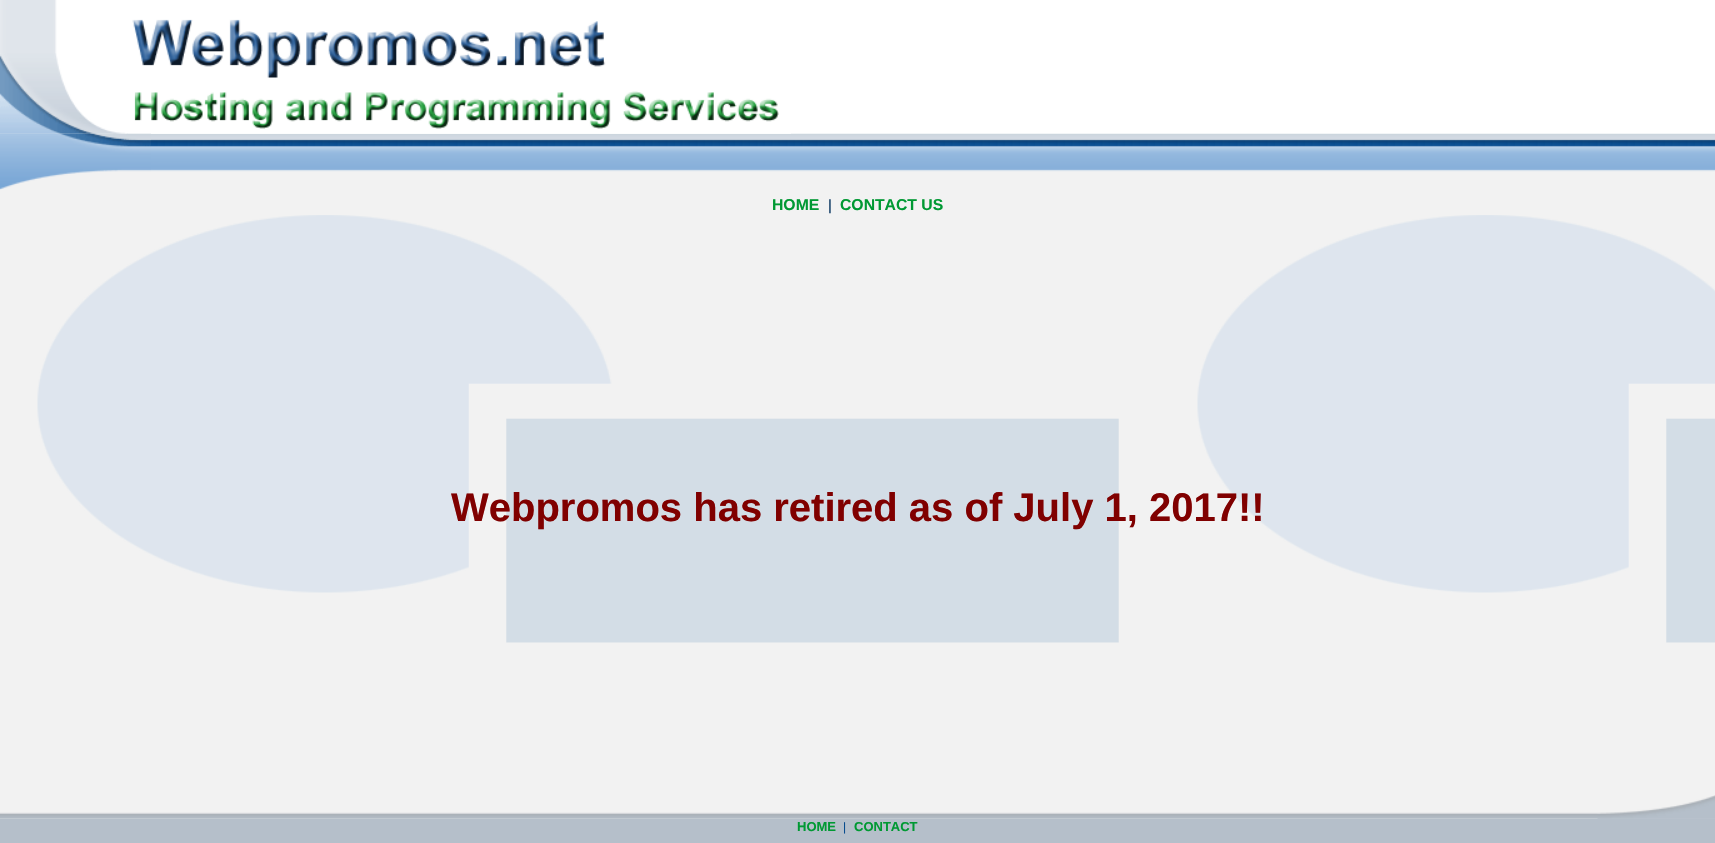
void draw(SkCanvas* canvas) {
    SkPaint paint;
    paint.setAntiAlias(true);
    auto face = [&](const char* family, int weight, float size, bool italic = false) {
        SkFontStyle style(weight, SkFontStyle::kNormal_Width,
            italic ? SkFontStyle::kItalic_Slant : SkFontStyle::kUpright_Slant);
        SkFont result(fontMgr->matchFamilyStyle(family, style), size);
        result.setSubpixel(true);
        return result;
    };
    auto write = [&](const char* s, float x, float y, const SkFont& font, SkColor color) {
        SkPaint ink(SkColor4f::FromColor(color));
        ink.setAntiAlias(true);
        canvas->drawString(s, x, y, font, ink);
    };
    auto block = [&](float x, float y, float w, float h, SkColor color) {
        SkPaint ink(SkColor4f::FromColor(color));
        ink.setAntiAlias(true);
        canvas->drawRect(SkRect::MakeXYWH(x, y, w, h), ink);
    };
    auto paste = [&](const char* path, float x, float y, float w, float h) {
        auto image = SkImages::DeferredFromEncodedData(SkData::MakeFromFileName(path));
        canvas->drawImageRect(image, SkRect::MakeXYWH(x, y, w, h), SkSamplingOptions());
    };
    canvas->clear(SK_ColorWHITE);
    paste("pic1.png", 0, 0, 57, 134);
    paste("pic5.png", 0, 133, 1715, 39);
    paste("pic2.png", 0, 53, 128, 81);
    paste("pic3.png", 132, 19, 474, 59);
    paste("pic4.png", 128, 91, 662, 43);
    block(790, 133, 1, 1, SkColorSetRGB(252, 252, 253));
    block(0, 172, 1715, 647, SkColorSetRGB(242, 242, 242));
    paste("pic6.png", 0, 133, 151, 57);
    paste("pic7.png", 37, 215, 1678, 428);
    auto kFont1 = face("Liberation Sans", 700, 15.75f);
    write("HOME", 772, 210, kFont1, SkColorSetRGB(0, 153, 51));
    auto kFont2 = face("Liberation Sans", 400, 15);
    write("|", 828, 210, kFont2, SkColorSetRGB(0, 46, 91));
    write("CONTACT US", 840, 210, kFont1, SkColorSetRGB(0, 153, 51));
    auto kFont3 = face("Liberation Sans", 700, 40);
    write("Webpromos has retired as of July 1, 2017!!", 451, 521, kFont3, SkColorSetRGB(128, 0, 0));
    paste("pic8.png", 0, 812, 1715, 7);
    paste("pic9.png", 1597, 795, 118, 24);
    block(0, 819, 1715, 24, SkColorSetRGB(181, 191, 202));
    auto kFont4 = face("Liberation Sans", 700, 13);
    write("HOME", 797, 831, kFont4, SkColorSetRGB(0, 153, 51));
    auto kFont5 = face("Liberation Sans", 400, 12);
    write("|", 843, 831, kFont5, SkColorSetRGB(0, 71, 140));
    write("CONTACT", 854, 831, kFont4, SkColorSetRGB(0, 153, 51));
}
